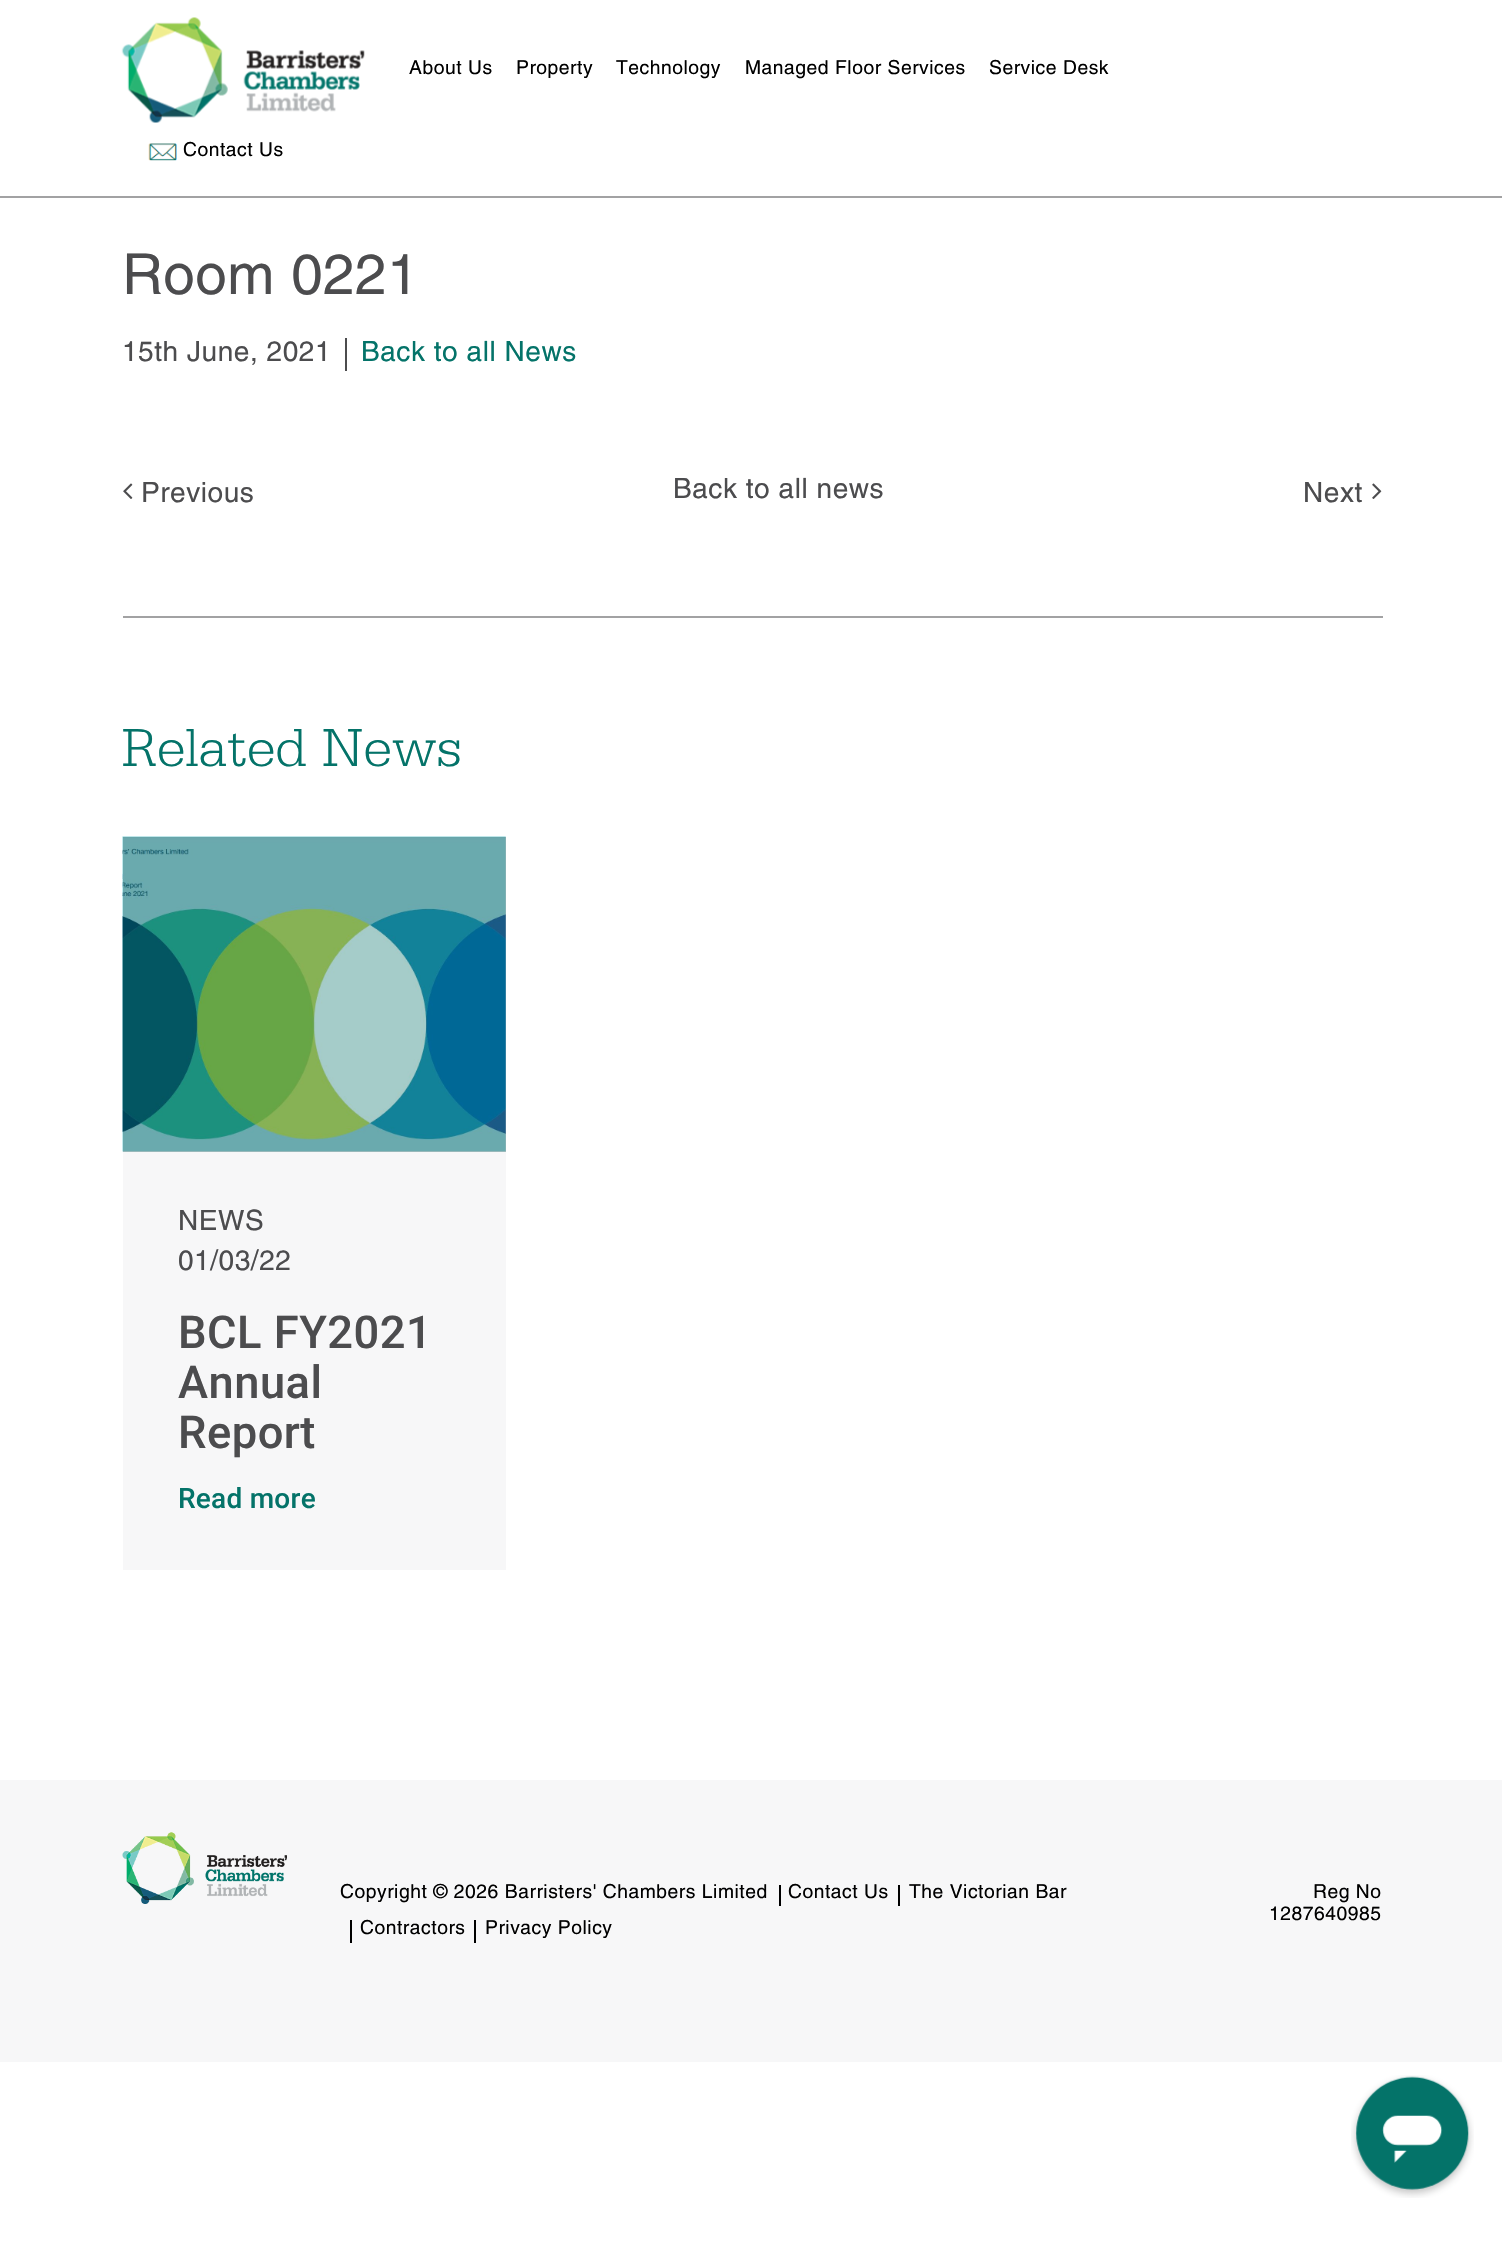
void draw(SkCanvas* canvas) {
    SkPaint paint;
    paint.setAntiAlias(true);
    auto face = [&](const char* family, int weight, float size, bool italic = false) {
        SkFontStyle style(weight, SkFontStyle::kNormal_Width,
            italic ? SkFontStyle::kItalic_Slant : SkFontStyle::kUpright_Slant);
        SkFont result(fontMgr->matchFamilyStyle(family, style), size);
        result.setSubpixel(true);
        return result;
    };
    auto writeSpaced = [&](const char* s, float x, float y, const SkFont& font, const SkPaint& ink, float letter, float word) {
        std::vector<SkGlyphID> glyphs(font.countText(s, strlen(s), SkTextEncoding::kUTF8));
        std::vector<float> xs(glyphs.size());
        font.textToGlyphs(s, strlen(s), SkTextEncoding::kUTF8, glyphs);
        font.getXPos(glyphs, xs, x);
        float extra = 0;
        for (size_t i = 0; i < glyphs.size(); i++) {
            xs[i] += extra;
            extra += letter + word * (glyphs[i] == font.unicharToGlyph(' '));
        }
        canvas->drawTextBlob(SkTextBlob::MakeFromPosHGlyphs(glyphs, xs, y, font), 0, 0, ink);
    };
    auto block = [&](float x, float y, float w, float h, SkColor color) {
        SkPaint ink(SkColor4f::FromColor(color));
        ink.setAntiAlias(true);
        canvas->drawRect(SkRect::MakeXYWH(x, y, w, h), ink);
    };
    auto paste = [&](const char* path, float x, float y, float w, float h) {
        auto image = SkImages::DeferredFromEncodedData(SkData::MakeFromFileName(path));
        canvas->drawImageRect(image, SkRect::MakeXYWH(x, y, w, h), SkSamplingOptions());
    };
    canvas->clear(SK_ColorWHITE);
    paste("pic1.png", 121, 17, 244, 106);
    auto kFont1 = face("Helvetica", 400, 19.25f);
    paint.setColor(SK_ColorBLACK);
    writeSpaced("About Us", 409, 74, kFont1, paint, 0.55f, 0);
    writeSpaced("Property", 516, 74, kFont1, paint, 0.55f, 0);
    writeSpaced("Technology", 616, 74, kFont1, paint, 0.55f, 0);
    writeSpaced("Managed Floor Services", 745, 74, kFont1, paint, 0.55f, 0);
    writeSpaced("Service Desk", 989, 74, kFont1, paint, 0.55f, 0);
    paste("pic2.png", 148, 143, 29, 18);
    writeSpaced("Contact Us", 183, 156, kFont1, paint, 0.55f, 0);
    block(0, 196, 1502, 2, SkColorSetRGB(162, 162, 163));
    auto kFont2 = face("Helvetica", 400, 56.5f);
    paint.setColor(SkColorSetRGB(76, 76, 78));
    writeSpaced("Room 0221", 122, 294, kFont2, paint, 0.55f, 0);
    auto kFont3 = face("Helvetica", 400, 28);
    writeSpaced("15th June, 2021", 122, 361, kFont3, paint, 0.55f, 0);
    block(345, 338, 2, 33, SkColorSetRGB(76, 76, 78));
    paint.setColor(SkColorSetRGB(4, 115, 105));
    writeSpaced("Back to all News", 361, 361, kFont3, paint, 0.55f, 0);
    paste("pic3.png", 123, 483, 10, 16);
    paint.setColor(SkColorSetRGB(76, 76, 78));
    writeSpaced("Previous", 141, 502, kFont3, paint, 0.55f, 0);
    writeSpaced("Back to all news", 673, 498, kFont3, paint, 0.55f, 0);
    writeSpaced("Next", 1303, 502, kFont3, paint, 0.55f, 0);
    paste("pic4.png", 1372, 483, 10, 16);
    block(123, 616, 1260, 2, SkColorSetRGB(162, 162, 163));
    auto kFont4 = face("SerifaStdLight", 400, 56.5f);
    paint.setColor(SkColorSetRGB(4, 115, 105));
    writeSpaced("Related News", 122, 766, kFont4, paint, 0.5f, 0);
    block(123, 1152, 383, 418, SkColorSetRGB(247, 247, 248));
    block(123, 837, 383, 315, SkColorSetRGB(198, 198, 198));
    paste("pic5.png", 122, 836, 384, 316);
    paint.setColor(SkColorSetRGB(76, 76, 78));
    writeSpaced("NEWS", 178, 1230, kFont3, paint, 0.55f, 0);
    writeSpaced("01/03/22", 178, 1270, kFont3, paint, 0.55f, 0);
    auto kFont5 = face("Roboto", 500, 45.25f);
    writeSpaced("BCL FY2021", 178, 1348, kFont5, paint, 0.5f, 0);
    writeSpaced("Annual", 178, 1398, kFont5, paint, 0.5f, 0);
    writeSpaced("Report", 178, 1448, kFont5, paint, 0.5f, 0);
    auto kFont6 = face("Roboto", 500, 28);
    paint.setColor(SkColorSetRGB(4, 115, 105));
    writeSpaced("Read more", 178, 1508, kFont6, paint, 0.25f, 0);
    block(0, 1780, 1502, 282, SkColorSetRGB(247, 247, 248));
    paste("pic6.png", 122, 1832, 165, 72);
    paint.setColor(SK_ColorBLACK);
    writeSpaced("Copyright © 2026 Barristers' Chambers Limited", 340, 1898, kFont1, paint, 0.55f, 0);
    block(779, 1885, 2, 21, SK_ColorBLACK);
    writeSpaced("Contact Us", 788, 1898, kFont1, paint, 0.55f, 0);
    block(898, 1885, 2, 21, SK_ColorBLACK);
    writeSpaced("The Victorian Bar", 909, 1898, kFont1, paint, 0.55f, 0);
    block(350, 1920, 2, 23, SK_ColorBLACK);
    writeSpaced("Contractors", 360, 1934, kFont1, paint, 0.55f, 0);
    block(474, 1920, 2, 23, SK_ColorBLACK);
    writeSpaced("Privacy Policy", 485, 1934, kFont1, paint, 0.55f, 0);
    writeSpaced("Reg No", 1313, 1898, kFont1, paint, 0.55f, 0);
    writeSpaced("1287640985", 1269, 1920, kFont1, paint, 0.55f, 0);
    paste("pic7.png", 1351, 2075, 123, 123);
}
